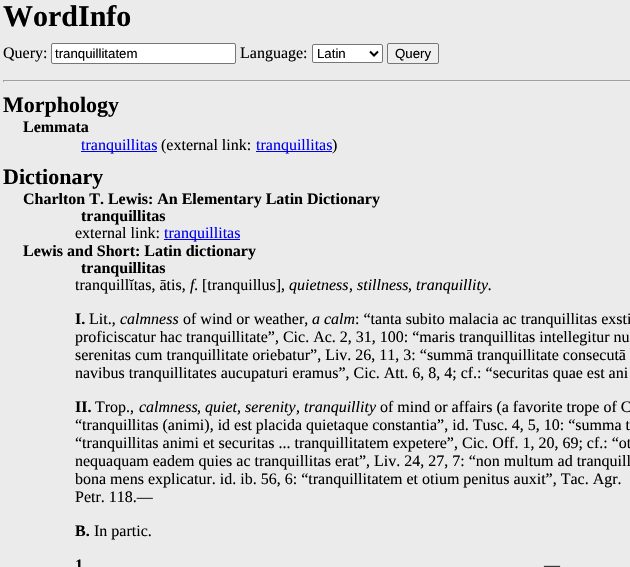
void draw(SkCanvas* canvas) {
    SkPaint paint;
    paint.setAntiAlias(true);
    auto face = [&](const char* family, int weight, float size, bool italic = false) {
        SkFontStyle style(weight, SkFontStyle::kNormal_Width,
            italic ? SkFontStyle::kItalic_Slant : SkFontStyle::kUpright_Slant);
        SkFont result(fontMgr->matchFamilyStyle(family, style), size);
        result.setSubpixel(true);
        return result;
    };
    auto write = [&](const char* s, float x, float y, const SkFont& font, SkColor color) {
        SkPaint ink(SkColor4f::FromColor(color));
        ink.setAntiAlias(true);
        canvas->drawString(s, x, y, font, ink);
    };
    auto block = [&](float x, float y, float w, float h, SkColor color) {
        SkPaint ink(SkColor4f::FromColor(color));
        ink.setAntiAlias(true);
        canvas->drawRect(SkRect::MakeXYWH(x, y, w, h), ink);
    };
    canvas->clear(SkColorSetRGB(235, 235, 235));
    auto kFont1 = face("Liberation Serif", 700, 30);
    write("WordInfo", 3, 26, kFont1, SK_ColorBLACK);
    auto kFont2 = face("Liberation Serif", 400, 16);
    write("Query:", 3, 58, kFont2, SK_ColorBLACK);
    paint.setColor(SK_ColorWHITE);
    canvas->drawRoundRect(SkRect::MakeXYWH(51.5f, 43.5f, 184, 20), 1.5f, 1.5f, paint);
    paint.setStyle(SkPaint::kStroke_Style);
    paint.setStrokeWidth(1);
    paint.setColor(SkColorSetRGB(118, 118, 118));
    canvas->drawRoundRect(SkRect::MakeXYWH(51.5f, 43.5f, 184, 20), 1.5f, 1.5f, paint);
    auto kFont3 = face("Liberation Sans", 400, 13.25f);
    write("tranquillitatem", 55, 58, kFont3, SK_ColorBLACK);
    write("Language:", 240, 58, kFont2, SK_ColorBLACK);
    paint.setStyle(SkPaint::kFill_Style);
    paint.setColor(SK_ColorWHITE);
    canvas->drawRoundRect(SkRect::MakeXYWH(312.5f, 44.5f, 70, 18), 1.5f, 1.5f, paint);
    paint.setStyle(SkPaint::kStroke_Style);
    paint.setColor(SkColorSetRGB(118, 118, 118));
    canvas->drawRoundRect(SkRect::MakeXYWH(312.5f, 44.5f, 70, 18), 1.5f, 1.5f, paint);
    paint.setStrokeWidth(2);
    paint.setColor(SK_ColorBLACK);
    canvas->drawPath(SkPathBuilder().moveTo(370, 51.5f).lineTo(374, 55.5f).lineTo(378, 51.5f).detach(), paint);
    write("Latin", 317, 58, kFont3, SK_ColorBLACK);
    paint.setStyle(SkPaint::kFill_Style);
    paint.setColor(SkColorSetRGB(239, 239, 239));
    canvas->drawRoundRect(SkRect::MakeXYWH(387.5f, 43.5f, 51, 20), 1.5f, 1.5f, paint);
    paint.setStyle(SkPaint::kStroke_Style);
    paint.setStrokeWidth(1);
    paint.setColor(SkColorSetRGB(118, 118, 118));
    canvas->drawRoundRect(SkRect::MakeXYWH(387.5f, 43.5f, 51, 20), 1.5f, 1.5f, paint);
    write("Query", 395, 58, kFont3, SK_ColorBLACK);
    block(3, 80, 627, 1, SkColorSetRGB(159, 159, 159));
    block(3, 81, 627, 1, SkColorSetRGB(238, 238, 238));
    block(3, 80, 1, 2, SkColorSetRGB(159, 159, 159));
    auto kFont4 = face("Liberation Serif", 700, 22);
    write("Morphology", 3, 112, kFont4, SK_ColorBLACK);
    auto kFont5 = face("Liberation Serif", 700, 16);
    write("Lemmata", 23, 132, kFont5, SK_ColorBLACK);
    block(81, 151, 76, 1, SkColorSetRGB(0, 0, 238));
    write("tranquillitas", 81, 150, kFont2, SkColorSetRGB(0, 0, 238));
    write("(external link:", 161, 150, kFont2, SK_ColorBLACK);
    block(256, 151, 76, 1, SkColorSetRGB(0, 0, 238));
    write("tranquillitas", 256, 150, kFont2, SkColorSetRGB(0, 0, 238));
    write(")", 332, 150, kFont2, SK_ColorBLACK);
    write("Dictionary", 3, 184, kFont4, SK_ColorBLACK);
    write("Charlton T. Lewis: An Elementary Latin Dictionary", 23, 204, kFont5, SK_ColorBLACK);
    write("tranquillitas", 81, 221, kFont5, SK_ColorBLACK);
    write("external link:", 75, 238, kFont2, SK_ColorBLACK);
    block(164, 239, 76, 1, SkColorSetRGB(0, 0, 238));
    write("tranquillitas", 164, 238, kFont2, SkColorSetRGB(0, 0, 238));
    write("Lewis and Short: Latin dictionary", 23, 256, kFont5, SK_ColorBLACK);
    write("tranquillitas", 81, 273, kFont5, SK_ColorBLACK);
    write("tranquillĭtas, ātis,", 75, 290, kFont2, SK_ColorBLACK);
    auto kFont6 = face("Liberation Serif", 400, 16, true);
    write("f.", 190, 290, kFont6, SK_ColorBLACK);
    write("[tranquillus],", 202, 290, kFont2, SK_ColorBLACK);
    write("quietness", 289, 290, kFont6, SK_ColorBLACK);
    write(",", 349, 290, kFont2, SK_ColorBLACK);
    write("stillness", 357, 290, kFont6, SK_ColorBLACK);
    write(",", 408, 290, kFont2, SK_ColorBLACK);
    write("tranquillity.", 416, 290, kFont6, SK_ColorBLACK);
    write("I.", 75, 324, kFont5, SK_ColorBLACK);
    write("Lit.,", 89, 324, kFont2, SK_ColorBLACK);
    write("calmness", 120, 324, kFont6, SK_ColorBLACK);
    write("of wind or weather,", 183, 324, kFont2, SK_ColorBLACK);
    write("a calm", 312, 324, kFont6, SK_ColorBLACK);
    write(": “tanta subito malacia ac tranquillitas exsti", 355, 324, kFont2, SK_ColorBLACK);
    write("proficiscatur hac tranquillitate”, Cic. Ac. 2, 31, 100: “maris tranquillitas intellegitur nu", 75, 342, kFont2, SK_ColorBLACK);
    write("serenitas cum tranquillitate oriebatur”, Liv. 26, 11, 3: “summā tranquillitate consecutā", 75, 360, kFont2, SK_ColorBLACK);
    write("navibus tranquillitates aucupaturi eramus”, Cic. Att. 6, 8, 4; cf.: “securitas quae est ani", 75, 378, kFont2, SK_ColorBLACK);
    write("II.", 75, 412, kFont5, SK_ColorBLACK);
    write("Trop.,", 95, 412, kFont2, SK_ColorBLACK);
    write("calmness", 139, 412, kFont6, SK_ColorBLACK);
    write(",", 197, 412, kFont2, SK_ColorBLACK);
    write("quiet", 205, 412, kFont6, SK_ColorBLACK);
    write(",", 237, 412, kFont2, SK_ColorBLACK);
    write("serenity", 245, 412, kFont6, SK_ColorBLACK);
    write(",", 296, 412, kFont2, SK_ColorBLACK);
    write("tranquillity", 304, 412, kFont6, SK_ColorBLACK);
    write("of mind or affairs (a favorite trope of C", 380, 412, kFont2, SK_ColorBLACK);
    write("“tranquillitas (animi), id est placida quietaque constantia”, id. Tusc. 4, 5, 10: “summa t", 75, 430, kFont2, SK_ColorBLACK);
    write("“tranquillitas animi et securitas ... tranquillitatem expetere”, Cic. Off. 1, 20, 69; cf.: “ot", 75, 448, kFont2, SK_ColorBLACK);
    write("nequaquam eadem quies ac tranquillitas erat”, Liv. 24, 27, 7: “non multum ad tranquill", 75, 466, kFont2, SK_ColorBLACK);
    write("bona mens explicatur. id. ib. 56, 6: “tranquillitatem et otium penitus auxit”, Tac. Agr.", 75, 484, kFont2, SK_ColorBLACK);
    write("Petr. 118.—", 75, 502, kFont2, SK_ColorBLACK);
    write("B.", 75, 536, kFont5, SK_ColorBLACK);
    write("In partic.", 94, 536, kFont2, SK_ColorBLACK);
    write("1", 75, 570, kFont5, SK_ColorBLACK);
    write("—", 544, 570, kFont2, SK_ColorBLACK);
}
